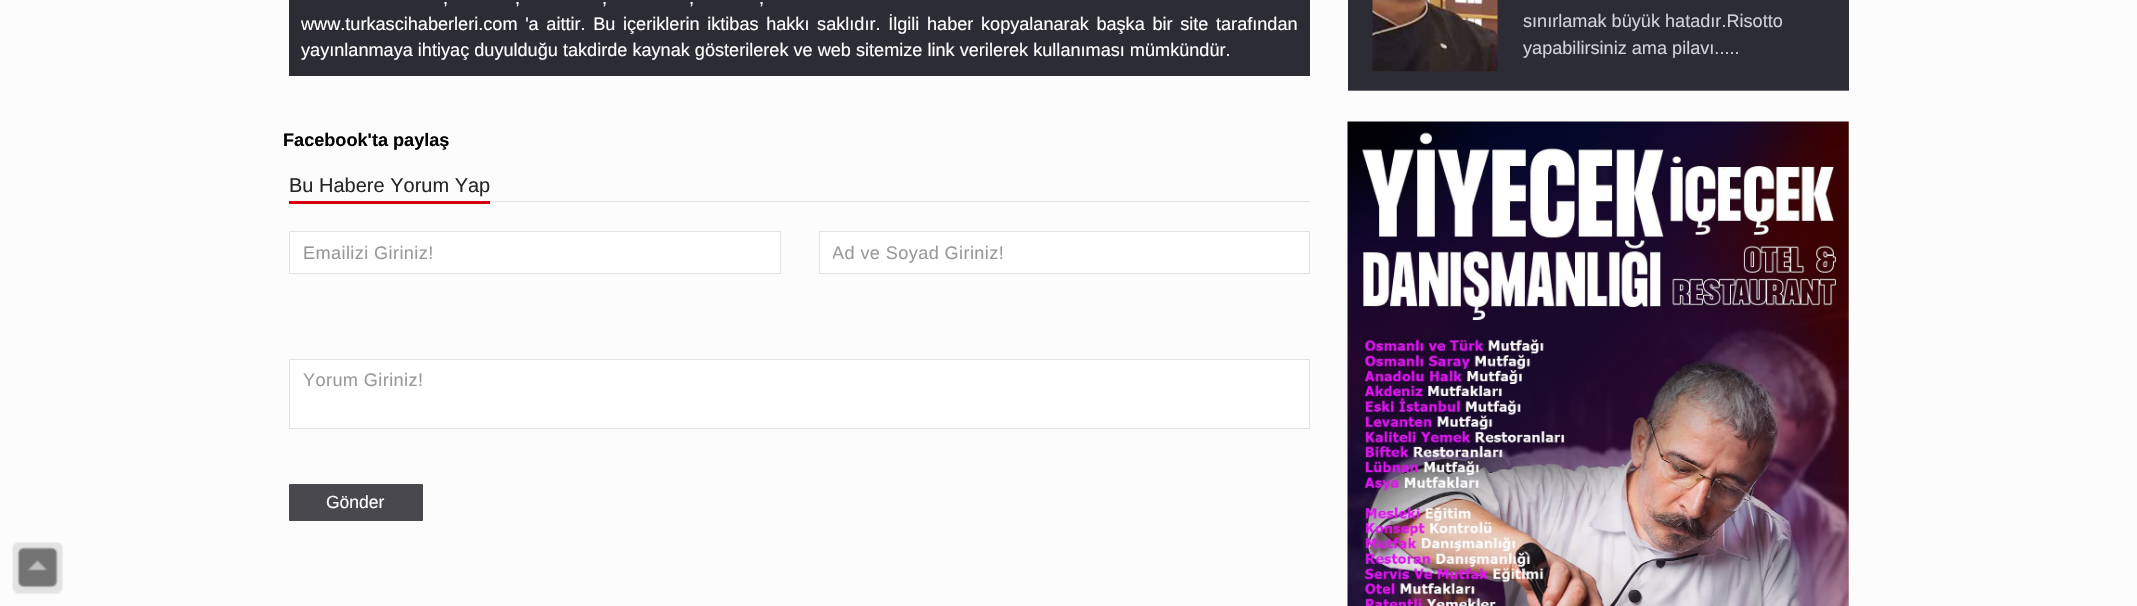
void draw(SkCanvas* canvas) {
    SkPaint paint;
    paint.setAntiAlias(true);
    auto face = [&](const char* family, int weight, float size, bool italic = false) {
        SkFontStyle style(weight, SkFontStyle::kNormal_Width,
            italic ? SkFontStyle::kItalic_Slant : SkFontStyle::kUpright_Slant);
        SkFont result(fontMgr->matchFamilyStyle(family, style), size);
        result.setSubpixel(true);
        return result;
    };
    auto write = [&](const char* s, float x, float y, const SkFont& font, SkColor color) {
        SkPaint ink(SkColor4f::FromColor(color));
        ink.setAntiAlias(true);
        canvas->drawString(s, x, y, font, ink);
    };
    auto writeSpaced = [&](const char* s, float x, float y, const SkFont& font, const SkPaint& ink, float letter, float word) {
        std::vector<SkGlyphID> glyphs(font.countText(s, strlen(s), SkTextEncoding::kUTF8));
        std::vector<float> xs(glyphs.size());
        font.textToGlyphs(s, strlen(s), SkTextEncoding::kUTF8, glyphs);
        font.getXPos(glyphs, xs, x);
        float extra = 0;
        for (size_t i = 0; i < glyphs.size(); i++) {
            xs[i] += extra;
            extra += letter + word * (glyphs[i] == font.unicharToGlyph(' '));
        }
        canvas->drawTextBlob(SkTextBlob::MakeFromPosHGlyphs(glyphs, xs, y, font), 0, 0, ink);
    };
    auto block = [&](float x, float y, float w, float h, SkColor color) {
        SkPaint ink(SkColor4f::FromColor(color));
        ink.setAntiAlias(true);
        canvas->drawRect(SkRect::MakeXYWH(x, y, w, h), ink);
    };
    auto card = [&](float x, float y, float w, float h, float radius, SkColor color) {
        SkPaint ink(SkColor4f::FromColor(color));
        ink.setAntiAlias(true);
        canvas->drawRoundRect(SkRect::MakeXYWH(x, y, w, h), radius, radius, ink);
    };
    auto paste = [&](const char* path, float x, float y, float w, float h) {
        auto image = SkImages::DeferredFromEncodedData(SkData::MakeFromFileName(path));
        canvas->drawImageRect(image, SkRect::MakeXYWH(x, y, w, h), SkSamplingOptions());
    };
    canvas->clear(SkColorSetRGB(252, 252, 252));
    block(289, 0, 1021, 76, SkColorSetRGB(44, 44, 52));
    auto kFont1 = face("Liberation Sans", 400, 18.12f);
    paint.setColor(SK_ColorWHITE);
    writeSpaced(",", 443, 4, kFont1, paint, 0, 16);
    writeSpaced(",", 515, 4, kFont1, paint, 0, 16);
    writeSpaced(",", 602, 4, kFont1, paint, 0, 16);
    writeSpaced(",", 689, 4, kFont1, paint, 0, 16);
    writeSpaced(",", 759, 4, kFont1, paint, 0, 16);
    writeSpaced("www.turkascihaberleri.com 'a aittir. Bu içeriklerin iktibas hakkı saklıdır. İlgili haber kopyalanarak başka bir site tarafından", 301, 30, kFont1, paint, 0, 2.6f);
    write("yayınlanmaya ihtiyaç duyulduğu takdirde kaynak gösterilerek ve web sitemize link verilerek kullanıması mümkündür.", 301, 56, kFont1, SK_ColorWHITE);
    auto kFont2 = face("Liberation Sans", 700, 18.12f);
    write("Facebook'ta paylaş", 283, 146, kFont2, SK_ColorBLACK);
    block(490, 201, 820, 1, SkColorSetRGB(227, 227, 227));
    block(289, 201, 201, 3, SkColorSetRGB(212, 0, 14));
    auto kFont3 = face("Liberation Sans", 400, 20);
    write("Bu Habere Yorum Yap", 289, 192, kFont3, SkColorSetRGB(38, 38, 38));
    canvas->drawRect(SkRect::MakeXYWH(289.5f, 231.5f, 491, 42), paint);
    paint.setStyle(SkPaint::kStroke_Style);
    paint.setStrokeWidth(1);
    paint.setColor(SkColorSetRGB(227, 226, 226));
    canvas->drawRect(SkRect::MakeXYWH(289.5f, 231.5f, 491, 42), paint);
    paint.setStyle(SkPaint::kFill_Style);
    paint.setColor(SkColorSetRGB(153, 153, 153));
    writeSpaced("Emailizi Giriniz!", 303, 259, kFont1, paint, 0.4f, 0);
    paint.setColor(SK_ColorWHITE);
    canvas->drawRect(SkRect::MakeXYWH(819.5f, 231.5f, 490, 42), paint);
    paint.setStyle(SkPaint::kStroke_Style);
    paint.setColor(SkColorSetRGB(227, 226, 226));
    canvas->drawRect(SkRect::MakeXYWH(819.5f, 231.5f, 490, 42), paint);
    canvas->save();
    canvas->clipRect(SkRect::MakeXYWH(833, 243, 463, 20));
    paint.setStyle(SkPaint::kFill_Style);
    paint.setColor(SkColorSetRGB(153, 153, 153));
    writeSpaced("Ad ve Soyad Giriniz!", 832, 259, kFont1, paint, 0.4f, 0);
    canvas->restore();
    paint.setColor(SK_ColorWHITE);
    canvas->drawRect(SkRect::MakeXYWH(289.5f, 359.5f, 1020, 69), paint);
    paint.setStyle(SkPaint::kStroke_Style);
    paint.setColor(SkColorSetRGB(227, 226, 226));
    canvas->drawRect(SkRect::MakeXYWH(289.5f, 359.5f, 1020, 69), paint);
    paint.setStyle(SkPaint::kFill_Style);
    paint.setColor(SkColorSetRGB(153, 153, 153));
    writeSpaced("Yorum Giriniz!", 303, 386, kFont1, paint, 0.4f, 0);
    card(289, 484, 134, 37, 1, SkColorSetRGB(73, 73, 77));
    auto kFont4 = face("Liberation Sans", 400, 17.5f);
    write("Gönder", 326, 508, kFont4, SK_ColorWHITE);
    block(1348, 0, 501, 90, SkColorSetRGB(44, 44, 52));
    block(1348, 90, 501, 1, SkColorSetRGB(114, 114, 115));
    paste("pic1.png", 1372, 0, 126, 72);
    write("sınırlamak büyük hatadır.Risotto", 1523, 27, kFont1, SkColorSetRGB(206, 210, 217));
    write("yapabilirsiniz ama pilavı.....", 1523, 54, kFont1, SkColorSetRGB(206, 210, 217));
    paste("pic2.png", 1347, 121, 502, 485);
    paste("pic3.png", 12, 542, 51, 52);
}
